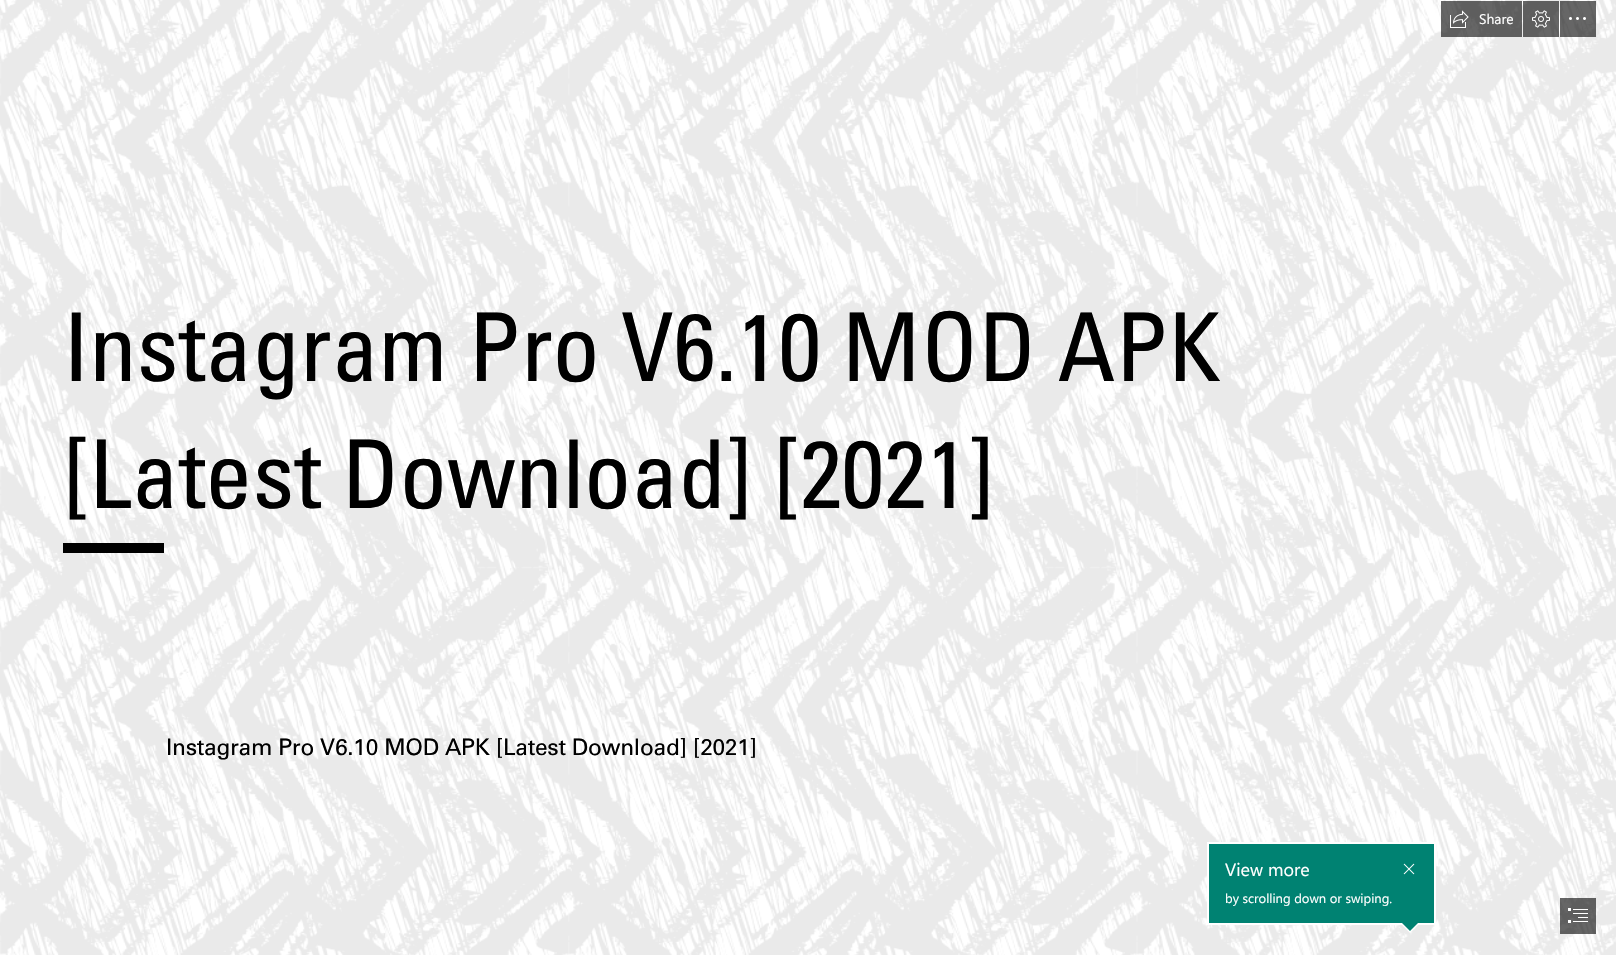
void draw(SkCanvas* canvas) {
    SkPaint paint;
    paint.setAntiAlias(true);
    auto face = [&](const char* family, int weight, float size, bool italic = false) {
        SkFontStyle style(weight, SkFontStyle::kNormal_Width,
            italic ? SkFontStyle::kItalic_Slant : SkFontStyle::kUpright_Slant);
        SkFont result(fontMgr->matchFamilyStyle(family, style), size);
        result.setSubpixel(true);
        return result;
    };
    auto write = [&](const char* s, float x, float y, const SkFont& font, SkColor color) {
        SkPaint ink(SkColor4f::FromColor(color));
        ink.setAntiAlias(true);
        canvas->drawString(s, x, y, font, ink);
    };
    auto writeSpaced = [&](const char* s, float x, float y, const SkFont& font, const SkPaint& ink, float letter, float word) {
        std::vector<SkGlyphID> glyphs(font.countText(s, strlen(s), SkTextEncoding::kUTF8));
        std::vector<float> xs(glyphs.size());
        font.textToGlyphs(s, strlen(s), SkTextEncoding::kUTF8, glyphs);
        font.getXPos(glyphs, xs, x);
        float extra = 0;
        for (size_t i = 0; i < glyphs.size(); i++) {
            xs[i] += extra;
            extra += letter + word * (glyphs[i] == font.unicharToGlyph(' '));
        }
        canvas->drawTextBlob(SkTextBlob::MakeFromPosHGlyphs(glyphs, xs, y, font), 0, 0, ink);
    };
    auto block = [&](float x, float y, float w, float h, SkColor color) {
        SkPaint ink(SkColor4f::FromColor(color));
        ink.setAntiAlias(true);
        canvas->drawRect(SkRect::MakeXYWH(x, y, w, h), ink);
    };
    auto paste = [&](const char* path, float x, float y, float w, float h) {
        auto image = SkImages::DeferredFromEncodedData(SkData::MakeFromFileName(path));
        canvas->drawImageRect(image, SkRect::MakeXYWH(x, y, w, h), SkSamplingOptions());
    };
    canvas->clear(SkColorSetRGB(234, 234, 234));
    paste("pic4.png", 0, 0, 1616, 955);
    block(1441, 1, 81, 36, SkColorSetARGB(153, 0, 0, 0));
    paste("pic1.png", 1450, 10, 19, 18);
    auto kFont1 = face("Segoe UI", 400, 14);
    write("Share", 1479, 24, kFont1, SK_ColorWHITE);
    block(1523, 1, 36, 36, SkColorSetARGB(153, 0, 0, 0));
    paste("pic2.png", 1532, 10, 18, 18);
    block(1560, 1, 36, 36, SkColorSetARGB(153, 0, 0, 0));
    paste("pic3.png", 1569, 17, 17, 3);
    auto kFont2 = face("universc", 400, 94.75f);
    write("Instagram Pro V6.10 MOD APK", 63, 381, kFont2, SK_ColorBLACK);
    write("[Latest Download] [2021]", 63, 508, kFont2, SK_ColorBLACK);
    block(63, 543, 101, 10, SK_ColorBLACK);
    auto kFont3 = face("univers", 400, 22.75f);
    paint.setColor(SK_ColorBLACK);
    writeSpaced("Instagram Pro V6.10 MOD APK [Latest Download] [2021]", 166, 755, kFont3, paint, -0.28f, 0);
    paint.setColor(SkColorSetRGB(0, 130, 114));
    canvas->drawRect(SkRect::MakeXYWH(1208, 843, 227, 81), paint);
    paint.setStyle(SkPaint::kStroke_Style);
    paint.setStrokeWidth(2);
    paint.setColor(SK_ColorWHITE);
    canvas->drawRect(SkRect::MakeXYWH(1208, 843, 227, 81), paint);
    auto kFont4 = face("Segoe UI", 400, 18);
    write("View more", 1225, 876, kFont4, SK_ColorWHITE);
    auto kFont5 = face("Segoe UI", 400, 13);
    write("by scrolling down or swiping.", 1225, 903, kFont5, SK_ColorWHITE);
    paste("pic5.png", 1403, 863, 12, 12);
    paint.setStyle(SkPaint::kFill_Style);
    canvas->drawPath(SkPathBuilder().moveTo(1400, 923).lineTo(1420, 923).lineTo(1410, 933).close().detach(), paint);
    paint.setColor(SkColorSetRGB(0, 130, 114));
    canvas->drawPath(SkPathBuilder().moveTo(1402, 923).lineTo(1418, 923).lineTo(1410, 931).close().detach(), paint);
    block(1560, 898, 36, 36, SkColorSetARGB(153, 0, 0, 0));
    paste("pic6.png", 1568, 908, 20, 15);
}
